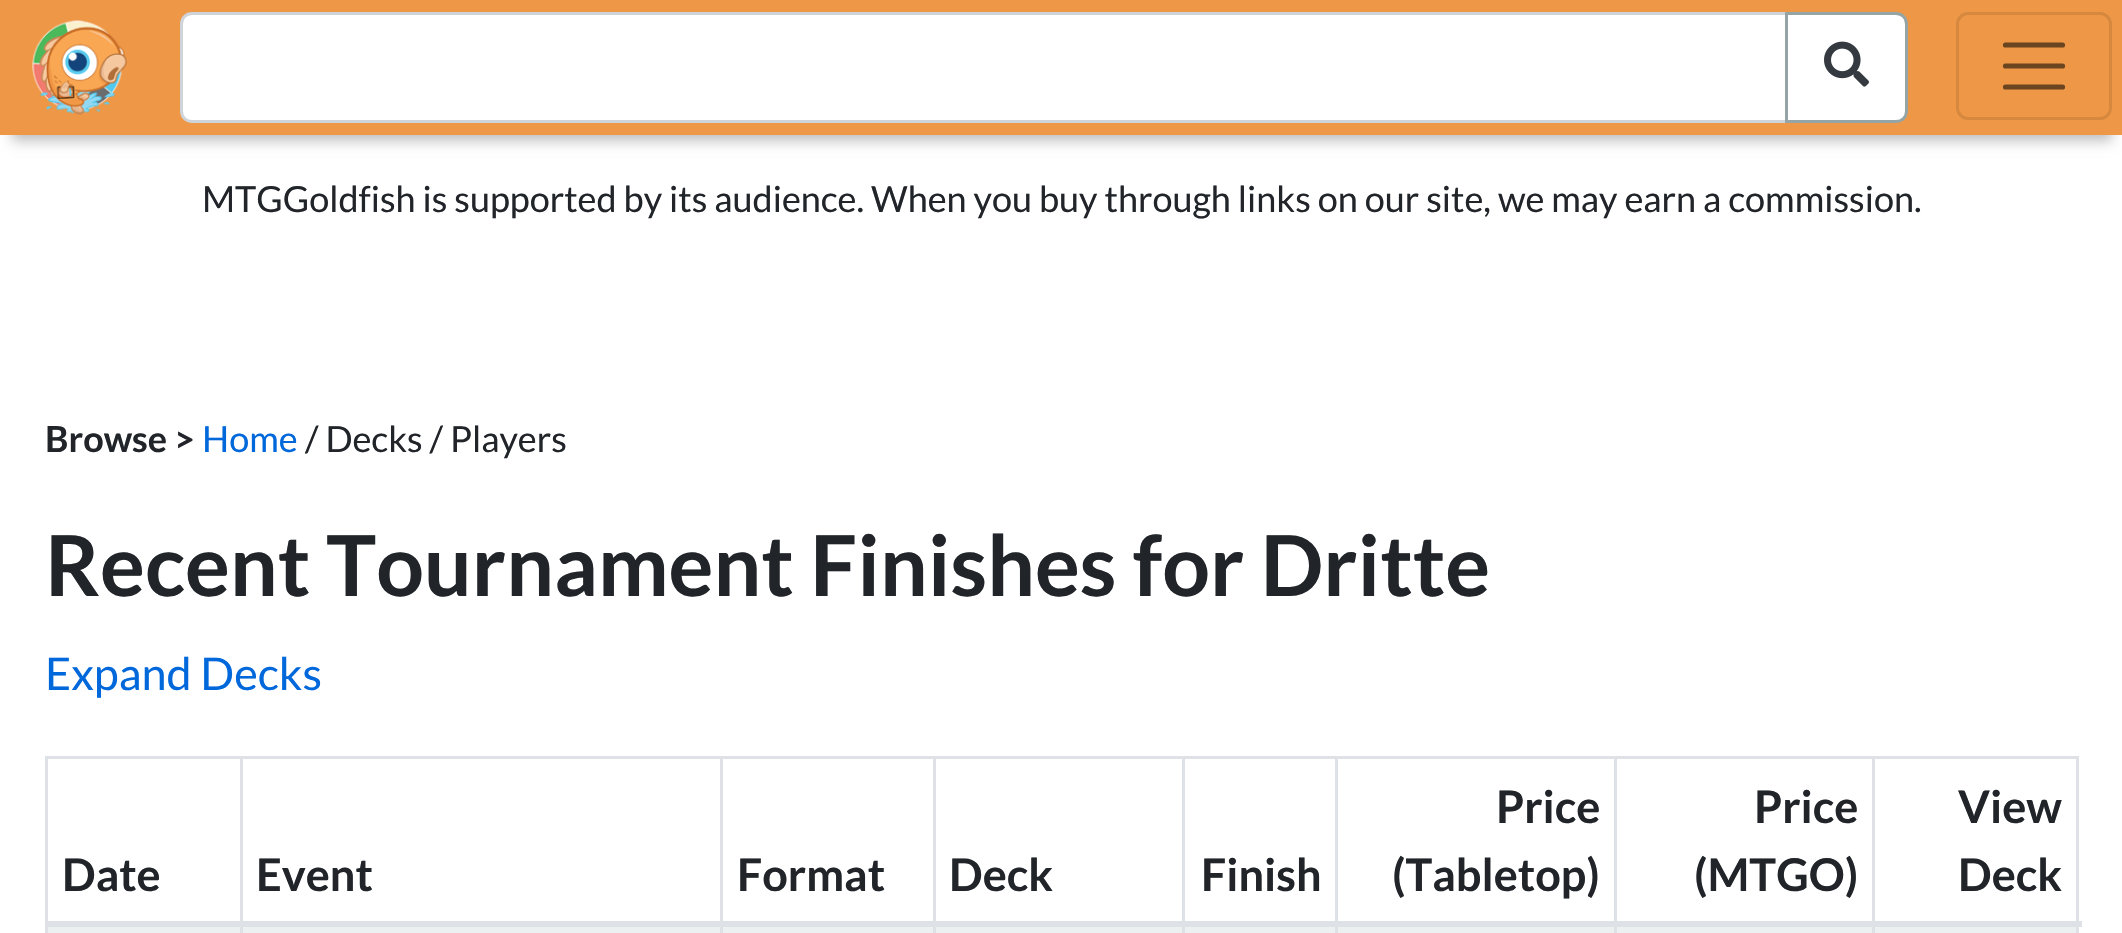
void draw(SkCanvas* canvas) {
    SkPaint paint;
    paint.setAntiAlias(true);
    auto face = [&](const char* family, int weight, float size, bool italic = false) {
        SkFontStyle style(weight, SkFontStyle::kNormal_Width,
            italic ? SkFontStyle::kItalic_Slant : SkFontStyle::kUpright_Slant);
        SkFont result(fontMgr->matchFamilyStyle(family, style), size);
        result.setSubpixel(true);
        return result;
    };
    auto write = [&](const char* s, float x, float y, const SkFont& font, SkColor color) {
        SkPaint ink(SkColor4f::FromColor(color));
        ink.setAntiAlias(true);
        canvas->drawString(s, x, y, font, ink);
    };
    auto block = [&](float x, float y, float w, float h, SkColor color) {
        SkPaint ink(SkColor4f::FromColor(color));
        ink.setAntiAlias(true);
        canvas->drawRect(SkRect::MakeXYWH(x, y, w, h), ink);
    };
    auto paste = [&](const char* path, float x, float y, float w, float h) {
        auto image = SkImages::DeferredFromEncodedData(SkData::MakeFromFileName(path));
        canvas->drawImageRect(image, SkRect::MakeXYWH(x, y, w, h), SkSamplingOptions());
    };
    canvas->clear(SK_ColorWHITE);
    paint.setColor(SkColorSetARGB(64, 0, 0, 0));
    paint.setMaskFilter(SkMaskFilter::MakeBlur(kNormal_SkBlurStyle, 6));
    canvas->drawRect(SkRect::MakeXYWH(12, 30, 2100, 111), paint);
    paint.setMaskFilter(nullptr);
    block(0, 0, 2122, 135, SkColorSetRGB(238, 151, 70));
    paste("pic1.png", 32, 20, 95, 95);
    paint.setColor(SK_ColorWHITE);
    canvas->drawPath(SkPathBuilder().moveTo(192, 13.5f).lineTo(1786.5f, 13.5f).lineTo(1786.5f, 121.5f).lineTo(192, 121.5f).cubicTo(186, 121.5f, 181.5f, 117, 181.5f, 111).lineTo(181.5f, 24).cubicTo(181.5f, 18, 186, 13.5f, 192, 13.5f).close().detach(), paint);
    paint.setStyle(SkPaint::kStroke_Style);
    paint.setStrokeWidth(3);
    paint.setColor(SkColorSetRGB(206, 212, 218));
    canvas->drawPath(SkPathBuilder().moveTo(192, 13.5f).lineTo(1786.5f, 13.5f).lineTo(1786.5f, 121.5f).lineTo(192, 121.5f).cubicTo(186, 121.5f, 181.5f, 117, 181.5f, 111).lineTo(181.5f, 24).cubicTo(181.5f, 18, 186, 13.5f, 192, 13.5f).close().detach(), paint);
    paint.setStyle(SkPaint::kFill_Style);
    paint.setColor(SK_ColorWHITE);
    canvas->drawPath(SkPathBuilder().moveTo(1786.5f, 13.5f).lineTo(1896, 13.5f).cubicTo(1902, 13.5f, 1906.5f, 18, 1906.5f, 24).lineTo(1906.5f, 111).cubicTo(1906.5f, 117, 1902, 121.5f, 1896, 121.5f).lineTo(1786.5f, 121.5f).close().detach(), paint);
    paint.setStyle(SkPaint::kStroke_Style);
    paint.setColor(SkColorSetRGB(149, 165, 166));
    canvas->drawPath(SkPathBuilder().moveTo(1786.5f, 13.5f).lineTo(1896, 13.5f).cubicTo(1902, 13.5f, 1906.5f, 18, 1906.5f, 24).lineTo(1906.5f, 111).cubicTo(1906.5f, 117, 1902, 121.5f, 1896, 121.5f).lineTo(1786.5f, 121.5f).close().detach(), paint);
    paste("pic2.png", 1824, 41, 45, 46);
    paint.setColor(SkColorSetRGB(214, 136, 63));
    canvas->drawRoundRect(SkRect::MakeXYWH(1957.5f, 13.5f, 153, 105), 10.5f, 10.5f, paint);
    paint.setStrokeWidth(5.2f);
    paint.setStrokeCap(SkPaint::kRound_Cap);
    paint.setColor(SkColorSetRGB(107, 68, 32));
    canvas->drawPath(SkPathBuilder().moveTo(2005.5f, 45).lineTo(2062.5f, 45).moveTo(2005.5f, 66).lineTo(2062.5f, 66).moveTo(2005.5f, 87).lineTo(2062.5f, 87).detach(), paint);
    auto kFont1 = face("Lato", 400, 36);
    write("MTGGoldfish is supported by its audience. When you buy through links on our site, we may earn a commission.", 202, 212, kFont1, SkColorSetRGB(33, 37, 41));
    auto kFont2 = face("Lato", 700, 36);
    write("Browse >", 45, 452, kFont2, SkColorSetRGB(33, 37, 41));
    write("Home", 202, 452, kFont1, SkColorSetRGB(0, 104, 219));
    write("/ Decks / Players", 305, 452, kFont1, SkColorSetRGB(33, 37, 41));
    auto kFont3 = face("Lato", 700, 84);
    write("Recent Tournament Finishes for Dritte", 45, 596, kFont3, SkColorSetRGB(33, 37, 41));
    auto kFont4 = face("Lato", 400, 45);
    write("Expand Decks", 45, 690, kFont4, SkColorSetRGB(0, 104, 219));
    block(45, 756, 2034, 3, SkColorSetRGB(222, 226, 230));
    block(2076, 756, 3, 177, SkColorSetRGB(222, 226, 230));
    block(45, 756, 3, 177, SkColorSetRGB(222, 226, 230));
    block(48, 927, 2028, 6, SkColorSetRGB(236, 240, 241));
    block(240, 756, 3, 177, SkColorSetRGB(222, 226, 230));
    block(720, 756, 3, 177, SkColorSetRGB(222, 226, 230));
    block(933, 756, 3, 177, SkColorSetRGB(222, 226, 230));
    block(1182, 756, 3, 177, SkColorSetRGB(222, 226, 230));
    block(1335, 756, 3, 177, SkColorSetRGB(222, 226, 230));
    block(1614, 756, 3, 177, SkColorSetRGB(222, 226, 230));
    block(1872, 756, 3, 177, SkColorSetRGB(222, 226, 230));
    auto kFont5 = face("Lato", 700, 45);
    write("Date", 62, 891, kFont5, SkColorSetRGB(33, 37, 41));
    write("Event", 256, 891, kFont5, SkColorSetRGB(33, 37, 41));
    write("Format", 737, 891, kFont5, SkColorSetRGB(33, 37, 41));
    write("Deck", 949, 891, kFont5, SkColorSetRGB(33, 37, 41));
    write("Finish", 1201, 891, kFont5, SkColorSetRGB(33, 37, 41));
    write("Price", 1496, 823, kFont5, SkColorSetRGB(33, 37, 41));
    write("(Tabletop)", 1392, 891, kFont5, SkColorSetRGB(33, 37, 41));
    write("Price", 1754, 823, kFont5, SkColorSetRGB(33, 37, 41));
    write("(MTGO)", 1694, 891, kFont5, SkColorSetRGB(33, 37, 41));
    block(45, 921, 2037, 6, SkColorSetRGB(222, 226, 230));
    write("View", 1958, 823, kFont5, SkColorSetRGB(33, 37, 41));
    write("Deck", 1958, 891, kFont5, SkColorSetRGB(33, 37, 41));
}
